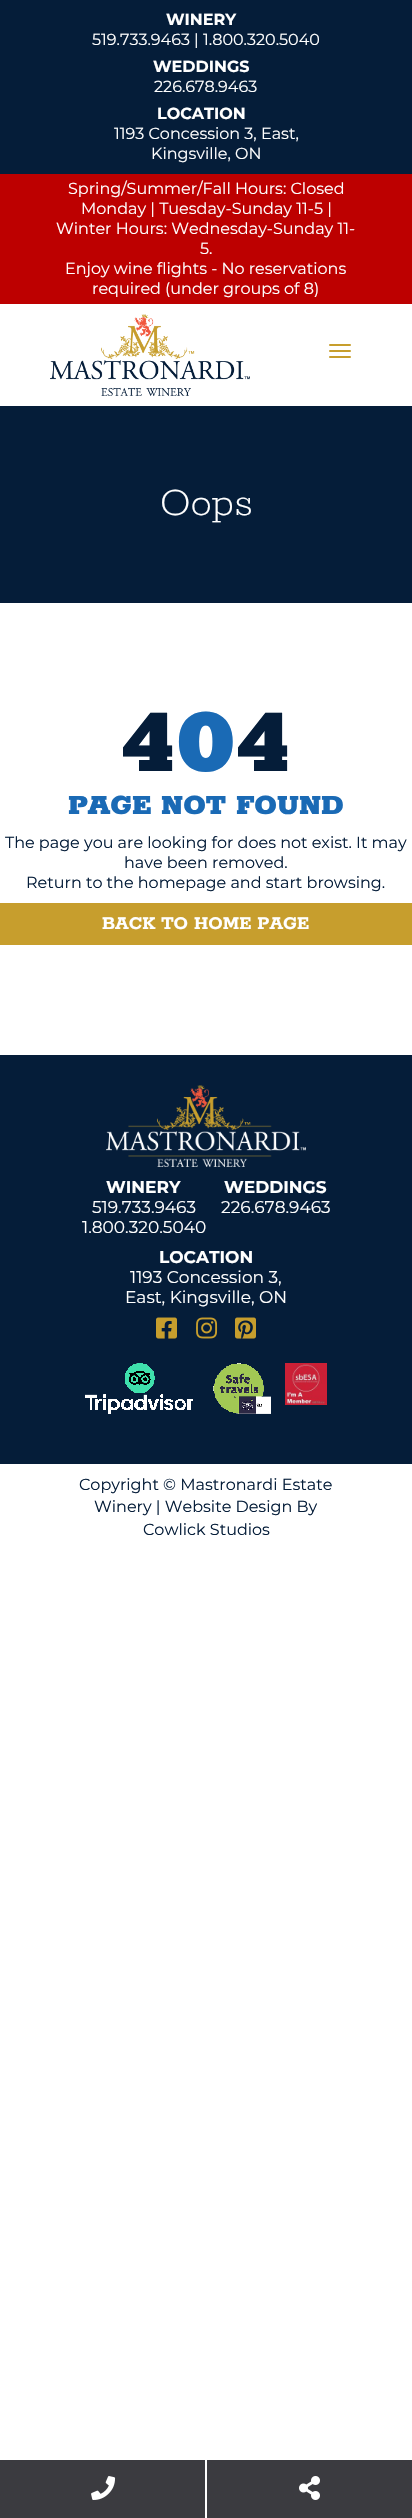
void draw(SkCanvas* canvas) {
    SkPaint paint;
    paint.setAntiAlias(true);
    auto face = [&](const char* family, int weight, float size, bool italic = false) {
        SkFontStyle style(weight, SkFontStyle::kNormal_Width,
            italic ? SkFontStyle::kItalic_Slant : SkFontStyle::kUpright_Slant);
        SkFont result(fontMgr->matchFamilyStyle(family, style), size);
        result.setSubpixel(true);
        return result;
    };
    auto write = [&](const char* s, float x, float y, const SkFont& font, SkColor color) {
        SkPaint ink(SkColor4f::FromColor(color));
        ink.setAntiAlias(true);
        canvas->drawString(s, x, y, font, ink);
    };
    auto block = [&](float x, float y, float w, float h, SkColor color) {
        SkPaint ink(SkColor4f::FromColor(color));
        ink.setAntiAlias(true);
        canvas->drawRect(SkRect::MakeXYWH(x, y, w, h), ink);
    };
    auto card = [&](float x, float y, float w, float h, float radius, SkColor color) {
        SkPaint ink(SkColor4f::FromColor(color));
        ink.setAntiAlias(true);
        canvas->drawRoundRect(SkRect::MakeXYWH(x, y, w, h), radius, radius, ink);
    };
    auto paste = [&](const char* path, float x, float y, float w, float h) {
        auto image = SkImages::DeferredFromEncodedData(SkData::MakeFromFileName(path));
        canvas->drawImageRect(image, SkRect::MakeXYWH(x, y, w, h), SkSamplingOptions());
    };
    canvas->clear(SK_ColorWHITE);
    block(0, 0, 412, 174, SkColorSetRGB(5, 29, 57));
    auto kFont1 = face("Montserrat", 700, 16);
    write("WINERY", 166, 25, kFont1, SK_ColorWHITE);
    auto kFont2 = face("Montserrat", 400, 16);
    write("519.733.9463 | 1.800.320.5040", 92, 45, kFont2, SK_ColorWHITE);
    write("WEDDINGS", 153, 72, kFont1, SK_ColorWHITE);
    write("226.678.9463", 154, 92, kFont2, SK_ColorWHITE);
    write("LOCATION", 157, 119, kFont1, SK_ColorWHITE);
    write("1193 Concession 3, East,", 114, 139, kFont2, SK_ColorWHITE);
    write("Kingsville, ON", 151, 159, kFont2, SK_ColorWHITE);
    block(0, 174, 412, 130, SkColorSetRGB(189, 0, 0));
    write("Spring/Summer/Fall Hours: Closed", 68, 194, kFont2, SK_ColorWHITE);
    write("Monday | Tuesday-Sunday 11-5 |", 81, 214, kFont2, SK_ColorWHITE);
    write("Winter Hours: Wednesday-Sunday 11-", 56, 234, kFont2, SK_ColorWHITE);
    write("5.", 200, 254, kFont2, SK_ColorWHITE);
    write("Enjoy wine flights - No reservations", 65, 274, kFont2, SK_ColorWHITE);
    write("required (under groups of 8)", 92, 294, kFont2, SK_ColorWHITE);
    paste("pic1.png", 50, 314, 200, 82);
    card(329, 344, 22, 2, 1, SkColorSetRGB(199, 158, 45));
    card(329, 350, 22, 2, 1, SkColorSetRGB(199, 158, 45));
    card(329, 356, 22, 2, 1, SkColorSetRGB(199, 158, 45));
    block(0, 406, 412, 197, SkColorSetRGB(5, 29, 57));
    auto kFont3 = face("Rokkitt", 200, 43);
    write("Oops", 160, 515, kFont3, SK_ColorWHITE);
    auto kFont4 = face("Rokkitt", 900, 100);
    write("4", 121, 771, kFont4, SkColorSetRGB(5, 29, 57));
    write("0", 176, 771, kFont4, SkColorSetRGB(26, 106, 181));
    write("4", 236, 771, kFont4, SkColorSetRGB(5, 29, 57));
    auto kFont5 = face("Rokkitt", 900, 31);
    write("PAGE NOT FOUND", 68, 814, kFont5, SkColorSetRGB(26, 106, 181));
    write("The page you are looking for does not exist. It may", 5, 848, kFont2, SkColorSetRGB(5, 29, 57));
    write("have been removed.", 124, 868, kFont2, SkColorSetRGB(5, 29, 57));
    write("Return to the homepage and start browsing.", 26, 888, kFont2, SkColorSetRGB(5, 29, 57));
    block(0, 903, 412, 42, SkColorSetRGB(199, 158, 45));
    auto kFont6 = face("Rokkitt", 700, 20);
    write("BACK TO HOME PAGE", 102, 929, kFont6, SK_ColorWHITE);
    block(0, 1055, 412, 409, SkColorSetRGB(5, 29, 57));
    paste("pic2.png", 106, 1085, 200, 82);
    auto kFont7 = face("Montserrat", 700, 17);
    write("WINERY", 106, 1193, kFont7, SK_ColorWHITE);
    auto kFont8 = face("Montserrat", 400, 17);
    write("519.733.9463", 92, 1213, kFont8, SK_ColorWHITE);
    write("1.800.320.5040", 82, 1233, kFont8, SK_ColorWHITE);
    write("WEDDINGS", 224, 1193, kFont7, SK_ColorWHITE);
    write("226.678.9463", 221, 1213, kFont8, SK_ColorWHITE);
    write("LOCATION", 159, 1263, kFont7, SK_ColorWHITE);
    write("1193 Concession 3,", 130, 1283, kFont8, SK_ColorWHITE);
    write("East, Kingsville, ON", 125, 1303, kFont8, SK_ColorWHITE);
    paste("pic3.png", 156, 1317, 21, 22);
    paste("pic4.png", 196, 1317, 22, 22);
    paste("pic5.png", 235, 1317, 21, 22);
    paste("pic6.png", 85, 1363, 108, 51);
    paste("pic7.png", 213, 1363, 58, 51);
    paste("pic8.png", 285, 1363, 42, 42);
    write("Copyright © Mastronardi Estate", 79, 1490, kFont2, SkColorSetRGB(5, 29, 57));
    write("Winery | Website Design By", 94, 1512, kFont2, SkColorSetRGB(5, 29, 57));
    write("Cowlick Studios", 143, 1535, kFont2, SkColorSetRGB(5, 29, 57));
    block(0, 2460, 205, 58, SkColorSetRGB(59, 59, 64));
    paste("pic9.png", 91, 2476, 25, 24);
    block(207, 2460, 205, 58, SkColorSetRGB(59, 59, 64));
    paste("pic10.png", 299, 2476, 21, 24);
}
